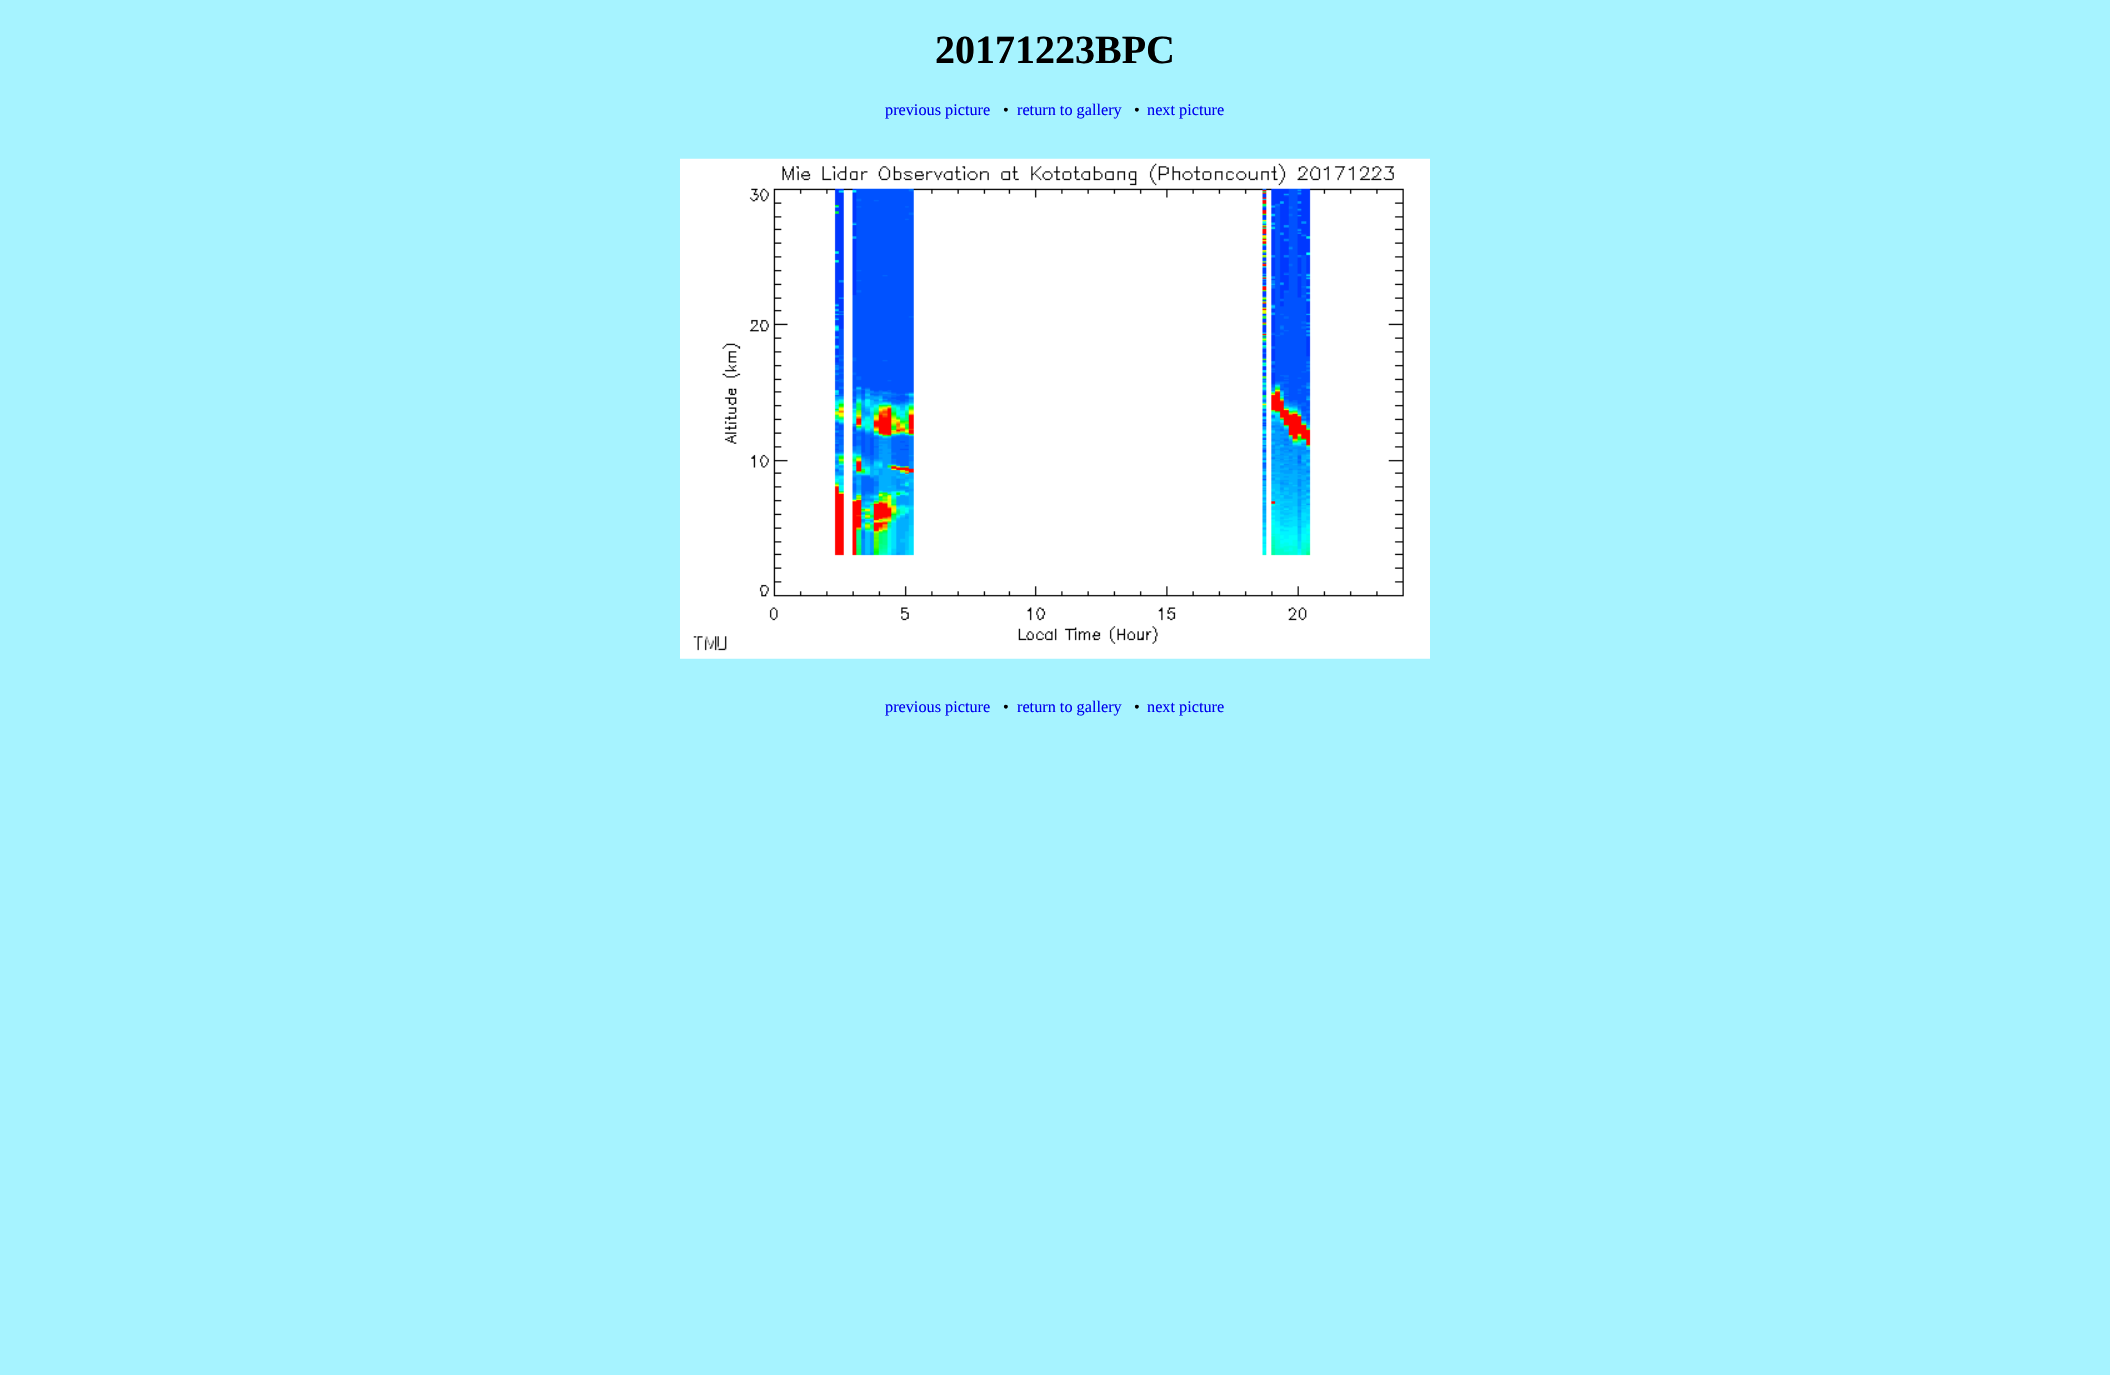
void draw(SkCanvas* canvas) {
    SkPaint paint;
    paint.setAntiAlias(true);
    auto face = [&](const char* family, int weight, float size, bool italic = false) {
        SkFontStyle style(weight, SkFontStyle::kNormal_Width,
            italic ? SkFontStyle::kItalic_Slant : SkFontStyle::kUpright_Slant);
        SkFont result(fontMgr->matchFamilyStyle(family, style), size);
        result.setSubpixel(true);
        return result;
    };
    auto write = [&](const char* s, float x, float y, const SkFont& font, SkColor color) {
        SkPaint ink(SkColor4f::FromColor(color));
        ink.setAntiAlias(true);
        canvas->drawString(s, x, y, font, ink);
    };
    auto paste = [&](const char* path, float x, float y, float w, float h) {
        auto image = SkImages::DeferredFromEncodedData(SkData::MakeFromFileName(path));
        canvas->drawImageRect(image, SkRect::MakeXYWH(x, y, w, h), SkSamplingOptions());
    };
    canvas->clear(SkColorSetRGB(166, 243, 255));
    auto kFont1 = face("Liberation Serif", 700, 40);
    write("20171223BPC", 935, 63, kFont1, SK_ColorBLACK);
    auto kFont2 = face("Liberation Serif", 400, 16.25f);
    write("previous picture", 885, 115, kFont2, SkColorSetRGB(0, 0, 238));
    write("•", 1003, 115, kFont2, SK_ColorBLACK);
    write("return to gallery", 1017, 115, kFont2, SkColorSetRGB(0, 0, 238));
    write("•", 1134, 115, kFont2, SK_ColorBLACK);
    write("next picture", 1147, 115, kFont2, SkColorSetRGB(0, 0, 238));
    paste("pic1.png", 680, 158, 750, 501);
    write("previous picture", 885, 712, kFont2, SkColorSetRGB(0, 0, 238));
    write("•", 1003, 712, kFont2, SK_ColorBLACK);
    write("return to gallery", 1017, 712, kFont2, SkColorSetRGB(0, 0, 238));
    write("•", 1134, 712, kFont2, SK_ColorBLACK);
    write("next picture", 1147, 712, kFont2, SkColorSetRGB(0, 0, 238));
}
